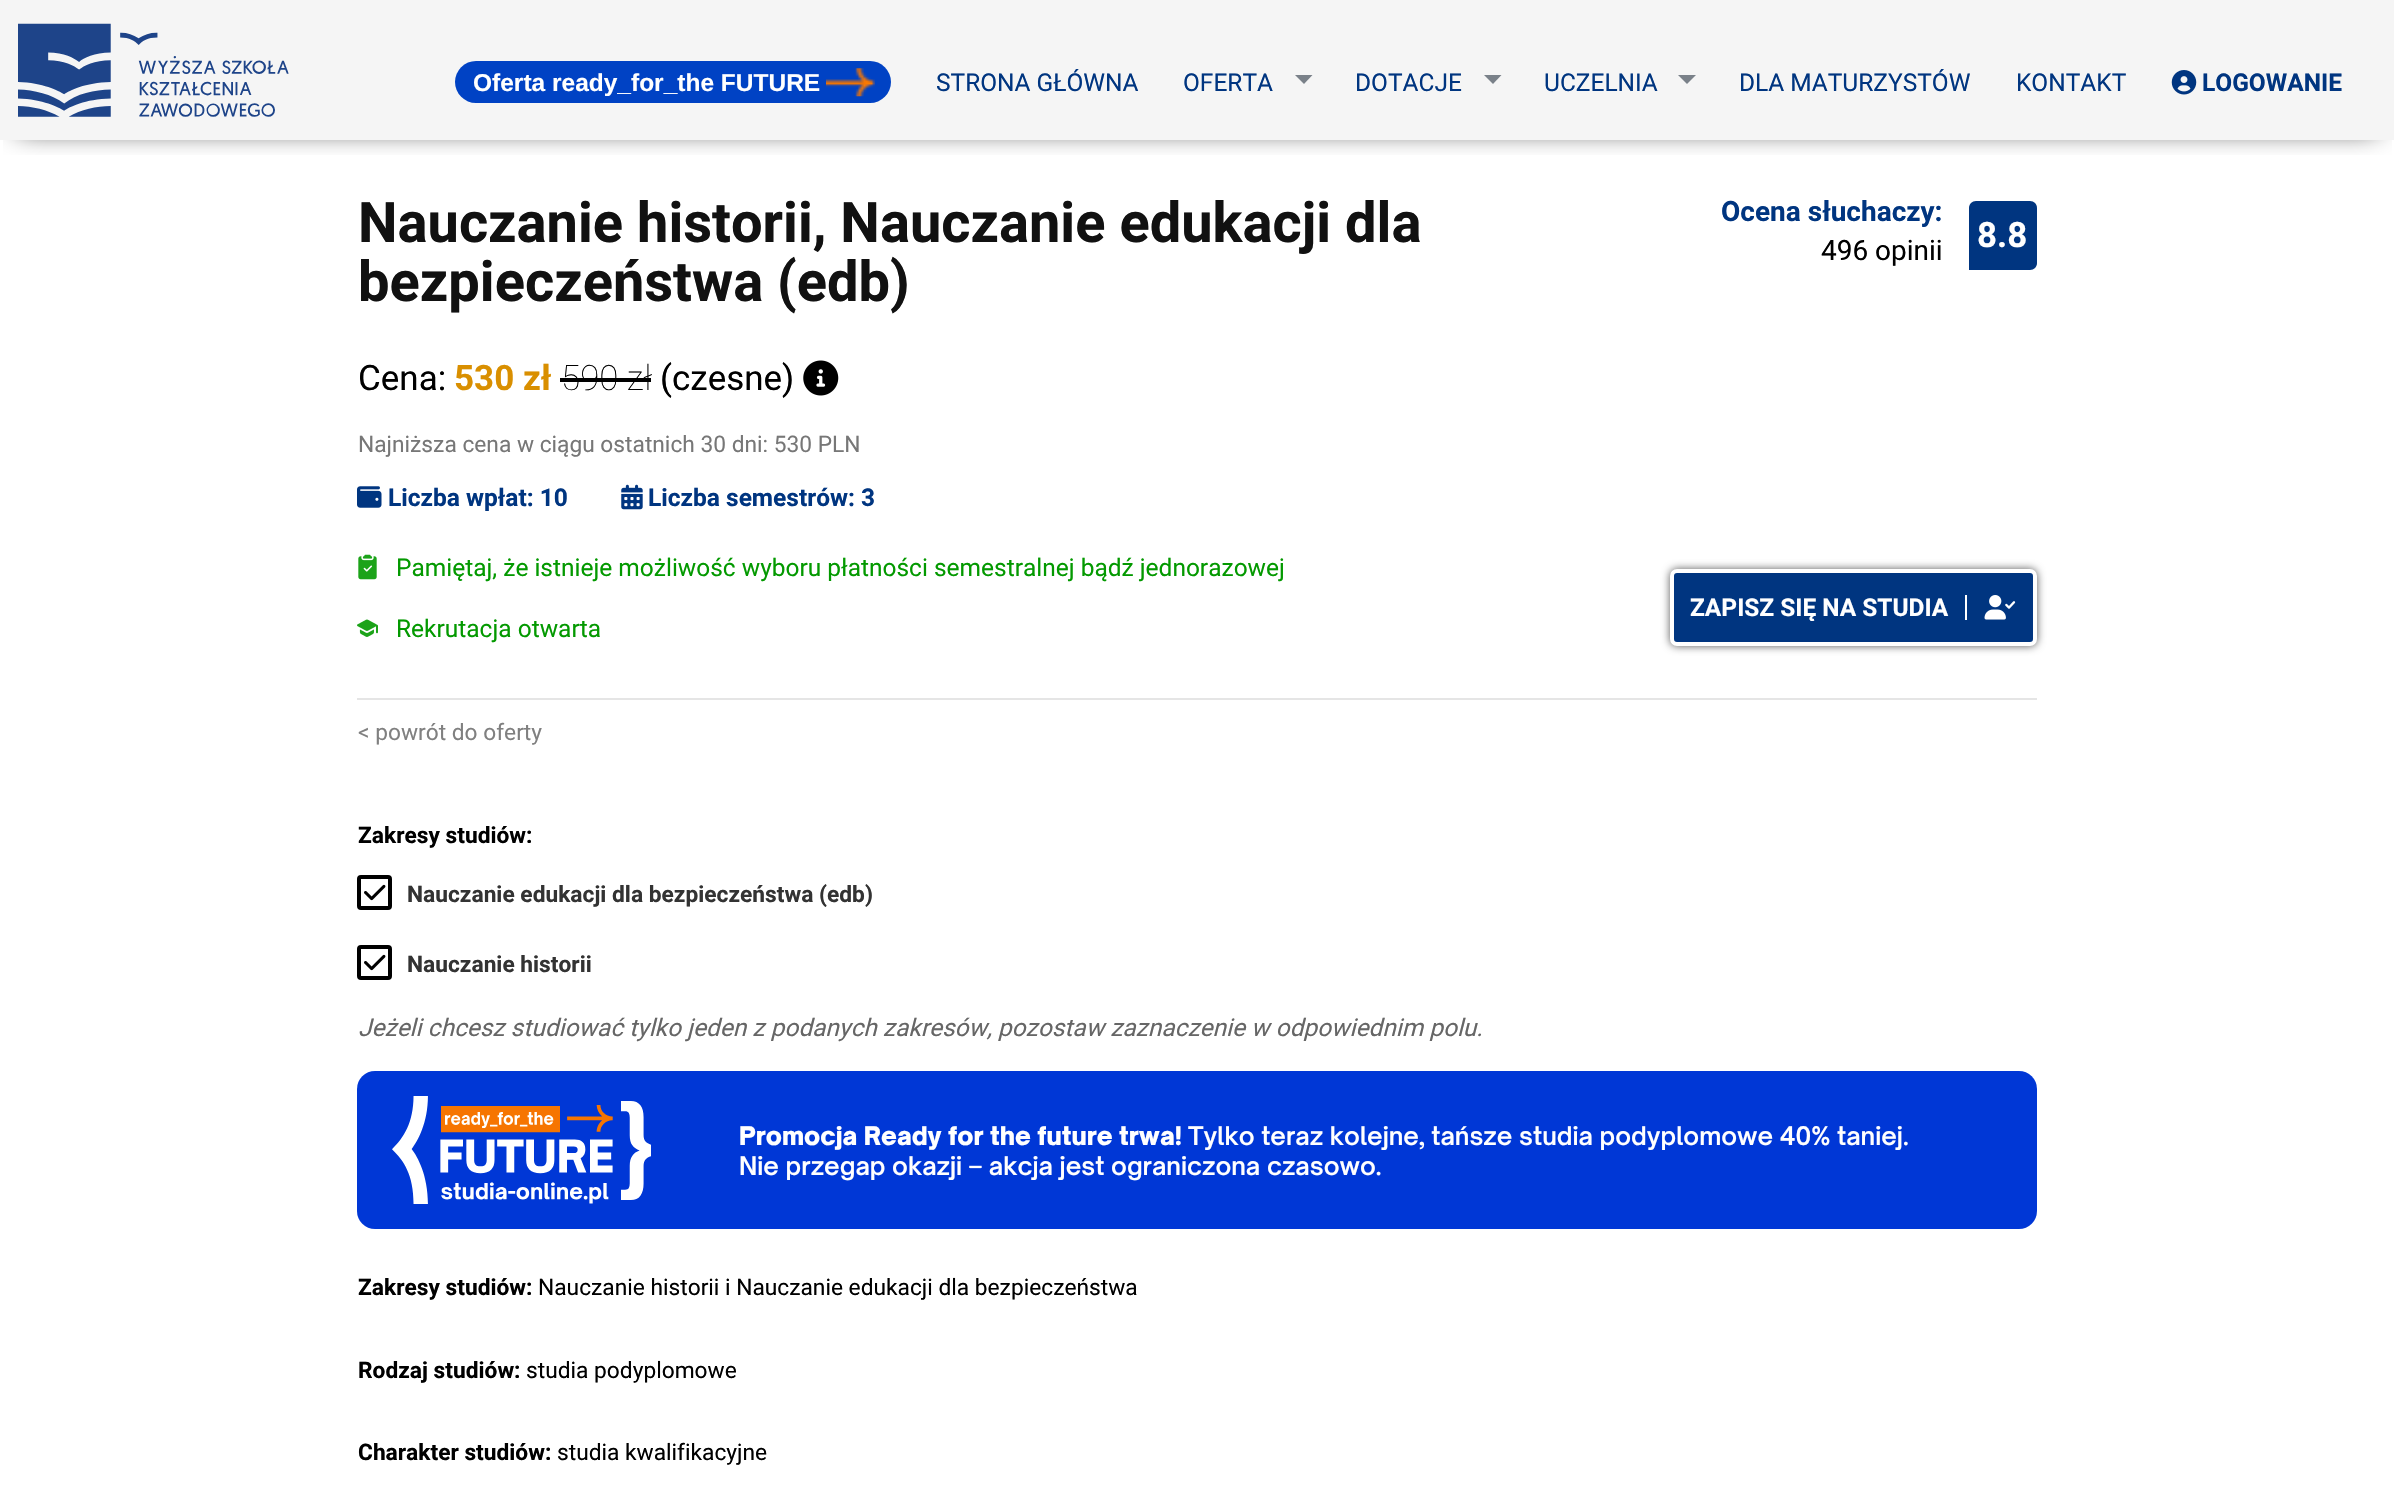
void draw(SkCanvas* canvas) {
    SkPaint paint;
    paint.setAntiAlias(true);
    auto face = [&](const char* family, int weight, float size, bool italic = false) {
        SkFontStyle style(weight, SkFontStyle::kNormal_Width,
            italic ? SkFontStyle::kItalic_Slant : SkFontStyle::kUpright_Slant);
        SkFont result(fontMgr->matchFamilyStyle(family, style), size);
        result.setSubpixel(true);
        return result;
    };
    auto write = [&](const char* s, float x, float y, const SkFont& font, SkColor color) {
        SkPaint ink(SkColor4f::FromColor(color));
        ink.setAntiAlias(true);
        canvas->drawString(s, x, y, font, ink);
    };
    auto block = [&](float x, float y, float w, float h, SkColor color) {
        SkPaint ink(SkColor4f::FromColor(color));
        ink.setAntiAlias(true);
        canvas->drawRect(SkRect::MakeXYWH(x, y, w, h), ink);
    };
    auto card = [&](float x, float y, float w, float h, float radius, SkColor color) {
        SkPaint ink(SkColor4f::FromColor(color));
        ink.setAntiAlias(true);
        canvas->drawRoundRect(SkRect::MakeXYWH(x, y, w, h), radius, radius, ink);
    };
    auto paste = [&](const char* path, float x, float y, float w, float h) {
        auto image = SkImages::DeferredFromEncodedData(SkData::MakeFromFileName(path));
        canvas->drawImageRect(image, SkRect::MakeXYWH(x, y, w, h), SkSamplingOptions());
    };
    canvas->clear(SK_ColorWHITE);
    block(0, 0, 2394, 140, SkColorSetRGB(245, 245, 245));
    canvas->save();
    canvas->clipRect(SkRect::MakeXYWH(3, 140, 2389, 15));
    paint.setColor(SK_ColorBLACK);
    paint.setMaskFilter(SkMaskFilter::MakeBlur(kNormal_SkBlurStyle, 13));
    canvas->drawRect(SkRect::MakeXYWH(18, 23, 2359, 105), paint);
    paint.setMaskFilter(nullptr);
    canvas->restore();
    paste("pic1.png", 18, 23, 271, 94);
    card(455, 61, 436, 42, 21, SkColorSetRGB(0, 66, 196));
    auto kFont1 = face("Liberation Sans", 700, 24.5f);
    write("Oferta ready_for_the FUTURE", 473, 91, kFont1, SK_ColorWHITE);
    paste("pic2.png", 826, 68, 49, 29);
    auto kFont2 = face("Roboto", 400, 24.5f);
    write("STRONA GŁÓWNA", 936, 91, kFont2, SkColorSetRGB(0, 53, 128));
    write("OFERTA", 1183, 91, kFont2, SkColorSetRGB(0, 53, 128));
    paint.setColor(SkColorSetRGB(122, 129, 137));
    canvas->drawPath(SkPathBuilder().moveTo(1295, 75).lineTo(1312.5f, 75).lineTo(1304, 84).close().detach(), paint);
    write("DOTACJE", 1355, 91, kFont2, SkColorSetRGB(0, 53, 128));
    canvas->drawPath(SkPathBuilder().moveTo(1484, 75).lineTo(1501.5f, 75).lineTo(1493, 84).close().detach(), paint);
    write("UCZELNIA", 1544, 91, kFont2, SkColorSetRGB(0, 53, 128));
    canvas->drawPath(SkPathBuilder().moveTo(1678, 75).lineTo(1696, 75).lineTo(1687, 84).close().detach(), paint);
    write("DLA MATURZYSTÓW", 1739, 91, kFont2, SkColorSetRGB(0, 53, 128));
    write("KONTAKT", 2016, 91, kFont2, SkColorSetRGB(0, 53, 128));
    paste("pic3.png", 2171, 70, 26, 25);
    auto kFont3 = face("Roboto", 700, 24.5f);
    write("LOGOWANIE", 2202, 91, kFont3, SkColorSetRGB(0, 53, 128));
    auto kFont4 = face("Roboto", 700, 56);
    write("Nauczanie historii, Nauczanie edukacji dla", 358, 242, kFont4, SkColorSetRGB(17, 17, 17));
    write("bezpieczeństwa (edb)", 358, 301, kFont4, SkColorSetRGB(17, 17, 17));
    auto kFont5 = face("Roboto", 700, 28);
    write("Ocena słuchaczy:", 1721, 221, kFont5, SkColorSetRGB(0, 53, 128));
    auto kFont6 = face("Roboto", 400, 28);
    write("496 opinii", 1821, 260, kFont6, SK_ColorBLACK);
    paint.setColor(SkColorSetRGB(0, 53, 128));
    canvas->drawPath(SkPathBuilder().moveTo(1976, 201).lineTo(2030, 201).cubicTo(2034, 201, 2037, 204, 2037, 208).lineTo(2037, 263).cubicTo(2037, 267, 2034, 270, 2030, 270).lineTo(1969, 270).lineTo(1969, 208).cubicTo(1969, 204, 1972, 201, 1976, 201).close().detach(), paint);
    auto kFont7 = face("Roboto", 700, 35);
    write("8.8", 1977, 247, kFont7, SK_ColorWHITE);
    auto kFont8 = face("Roboto", 400, 35);
    write("Cena:", 358, 390, kFont8, SK_ColorBLACK);
    write("530 zł", 454, 390, kFont7, SkColorSetRGB(217, 143, 0));
    auto kFont9 = face("Roboto", 100, 35);
    write("590 zł", 561, 390, kFont9, SK_ColorBLACK);
    block(560, 378, 91, 4, SK_ColorBLACK);
    write("(czesne)", 660, 390, kFont8, SK_ColorBLACK);
    paste("pic4.png", 803, 360, 36, 36);
    auto kFont10 = face("Roboto", 400, 22.75f);
    write("Najniższa cena w ciągu ostatnich 30 dni: 530 PLN", 358, 452, kFont10, SkColorSetRGB(119, 119, 119));
    paste("pic5.png", 357, 486, 25, 22);
    write("Liczba wpłat: 10", 388, 506, kFont3, SkColorSetRGB(0, 53, 128));
    paste("pic6.png", 621, 484, 22, 26);
    write("Liczba semestrów: 3", 648, 506, kFont3, SkColorSetRGB(0, 53, 128));
    paste("pic7.png", 358, 554, 19, 26);
    write("Pamiętaj, że istnieje możliwość wyboru płatności semestralnej bądź jednorazowej", 396, 576, kFont2, SkColorSetRGB(3, 153, 0));
    paint.setColor(SkColorSetARGB(166, 0, 0, 0));
    paint.setMaskFilter(SkMaskFilter::MakeBlur(kNormal_SkBlurStyle, 4.5f));
    canvas->drawRoundRect(SkRect::MakeXYWH(1670, 569, 367, 77), 7, 7, paint);
    paint.setMaskFilter(nullptr);
    paint.setColor(SkColorSetRGB(0, 53, 128));
    canvas->drawRoundRect(SkRect::MakeXYWH(1672, 571, 363, 73), 5, 5, paint);
    paint.setStyle(SkPaint::kStroke_Style);
    paint.setStrokeWidth(4);
    paint.setColor(SK_ColorWHITE);
    canvas->drawRoundRect(SkRect::MakeXYWH(1672, 571, 363, 73), 5, 5, paint);
    write("ZAPISZ SIĘ NA STUDIA", 1690, 616, kFont3, SK_ColorWHITE);
    block(1965, 595, 2, 25, SK_ColorWHITE);
    paste("pic8.png", 1984, 595, 32, 25);
    paste("pic9.png", 357, 619, 21, 18);
    write("Rekrutacja otwarta", 396, 637, kFont2, SkColorSetRGB(3, 153, 0));
    block(357, 698, 1680, 2, SkColorSetRGB(229, 229, 229));
    write("< powrót do oferty", 358, 740, kFont10, SkColorSetRGB(128, 128, 128));
    auto kFont11 = face("Roboto", 700, 22.75f);
    write("Zakresy studiów:", 358, 843, kFont11, SK_ColorBLACK);
    paint.setColor(SK_ColorBLACK);
    canvas->drawRoundRect(SkRect::MakeXYWH(359, 877, 31, 31), 2, 2, paint);
    paste("pic10.png", 364, 884, 22, 17);
    write("Nauczanie edukacji dla bezpieczeństwa (edb)", 407, 902, kFont11, SkColorSetRGB(51, 51, 51));
    canvas->drawRoundRect(SkRect::MakeXYWH(359, 947, 31, 31), 2, 2, paint);
    paste("pic10.png", 364, 954, 22, 17);
    write("Nauczanie historii", 407, 972, kFont11, SkColorSetRGB(51, 51, 51));
    auto kFont12 = face("Roboto", 400, 24.5f, true);
    write("Jeżeli chcesz studiować tylko jeden z podanych zakresów, pozostaw zaznaczenie w odpowiednim polu.", 358, 1036, kFont12, SkColorSetRGB(102, 102, 102));
    card(357, 1071, 1680, 158, 18, SkColorSetRGB(0, 55, 214));
    paste("pic11.png", 392, 1096, 259, 108);
    auto kFont13 = face("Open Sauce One", 900, 24.5f);
    write("Promocja Ready for the future trwa!", 739, 1145, kFont13, SK_ColorWHITE);
    auto kFont14 = face("Open Sauce One", 600, 24.5f);
    write("Tylko teraz kolejne, tańsze studia podyplomowe 40% taniej.", 1188, 1145, kFont14, SK_ColorWHITE);
    write("Nie przegap okazji – akcja jest ograniczona czasowo.", 739, 1175, kFont14, SK_ColorWHITE);
    write("Zakresy studiów:", 358, 1295, kFont11, SK_ColorBLACK);
    write("Nauczanie historii i Nauczanie edukacji dla bezpieczeństwa", 538, 1295, kFont10, SK_ColorBLACK);
    write("Rodzaj studiów:", 358, 1378, kFont11, SK_ColorBLACK);
    write("studia podyplomowe", 526, 1378, kFont10, SK_ColorBLACK);
    write("Charakter studiów:", 358, 1460, kFont11, SK_ColorBLACK);
    write("studia kwalifikacyjne", 557, 1460, kFont10, SK_ColorBLACK);
}
